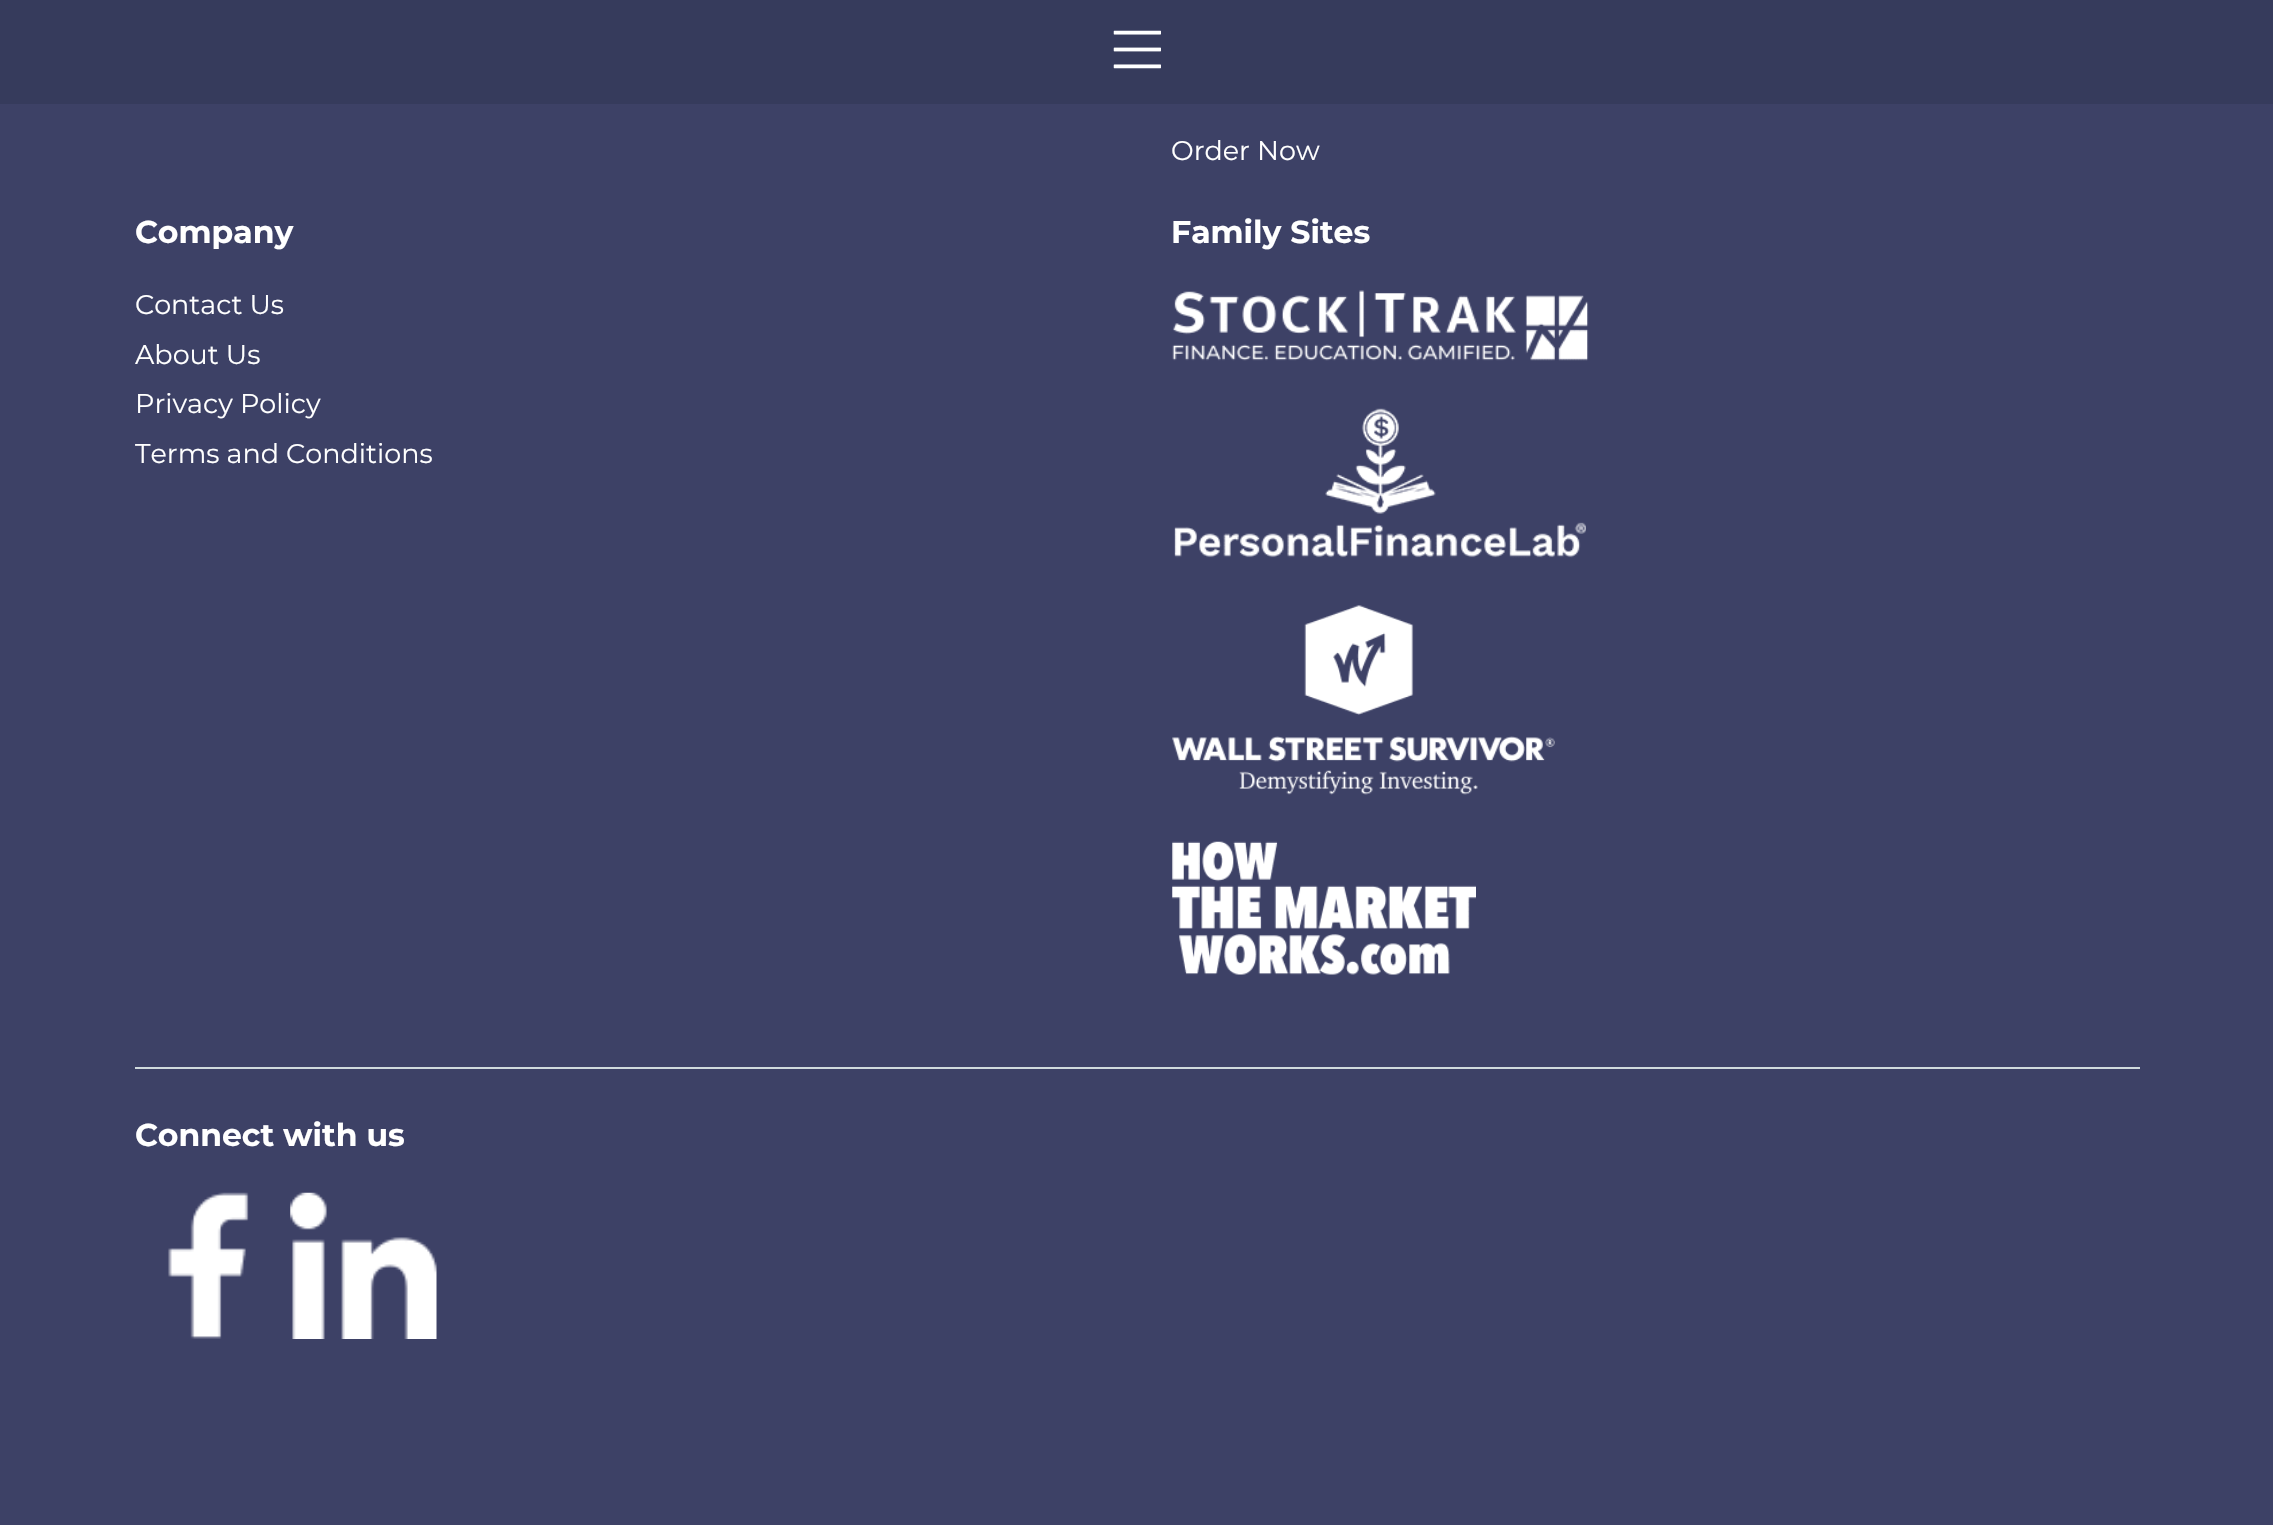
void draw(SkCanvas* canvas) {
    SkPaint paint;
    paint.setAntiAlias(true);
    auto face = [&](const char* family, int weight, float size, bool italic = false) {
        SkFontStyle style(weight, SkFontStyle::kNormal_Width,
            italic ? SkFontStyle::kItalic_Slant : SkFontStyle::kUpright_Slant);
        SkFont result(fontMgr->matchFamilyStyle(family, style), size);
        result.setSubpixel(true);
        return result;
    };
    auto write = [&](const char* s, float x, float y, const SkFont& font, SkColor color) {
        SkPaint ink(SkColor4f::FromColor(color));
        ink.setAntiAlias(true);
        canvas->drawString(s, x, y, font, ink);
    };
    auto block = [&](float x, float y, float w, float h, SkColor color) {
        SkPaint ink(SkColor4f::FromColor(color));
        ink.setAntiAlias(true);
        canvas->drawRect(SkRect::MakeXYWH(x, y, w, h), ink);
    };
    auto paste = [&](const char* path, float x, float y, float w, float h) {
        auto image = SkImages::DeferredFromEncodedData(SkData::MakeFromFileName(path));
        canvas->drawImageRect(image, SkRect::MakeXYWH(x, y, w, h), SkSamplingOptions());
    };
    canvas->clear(SkColorSetRGB(61, 65, 102));
    block(0, 0, 2273, 104, SkColorSetRGB(54, 59, 92));
    paste("pic1.png", 1113, 30, 48, 39);
    auto kFont1 = face("Montserrat", 400, 27);
    write("Order Now", 1171, 160, kFont1, SK_ColorWHITE);
    auto kFont2 = face("Montserrat", 700, 31.5f);
    write("Company", 135, 243, kFont2, SK_ColorWHITE);
    write("Contact Us", 135, 314, kFont1, SK_ColorWHITE);
    write("About Us", 135, 364, kFont1, SK_ColorWHITE);
    write("Privacy Policy", 135, 413, kFont1, SK_ColorWHITE);
    write("Terms and Conditions", 135, 463, kFont1, SK_ColorWHITE);
    write("Family Sites", 1171, 243, kFont2, SK_ColorWHITE);
    paste("pic2.png", 1172, 290, 417, 71);
    paste("pic3.png", 1174, 408, 412, 150);
    paste("pic4.png", 1172, 605, 383, 190);
    paste("pic5.png", 1172, 841, 304, 134);
    block(135, 1067, 2005, 2, SkColorSetRGB(208, 218, 221));
    write("Connect with us", 135, 1146, kFont2, SK_ColorWHITE);
    paste("pic6.png", 168, 1192, 81, 147);
    paste("pic7.png", 290, 1192, 147, 147);
}
